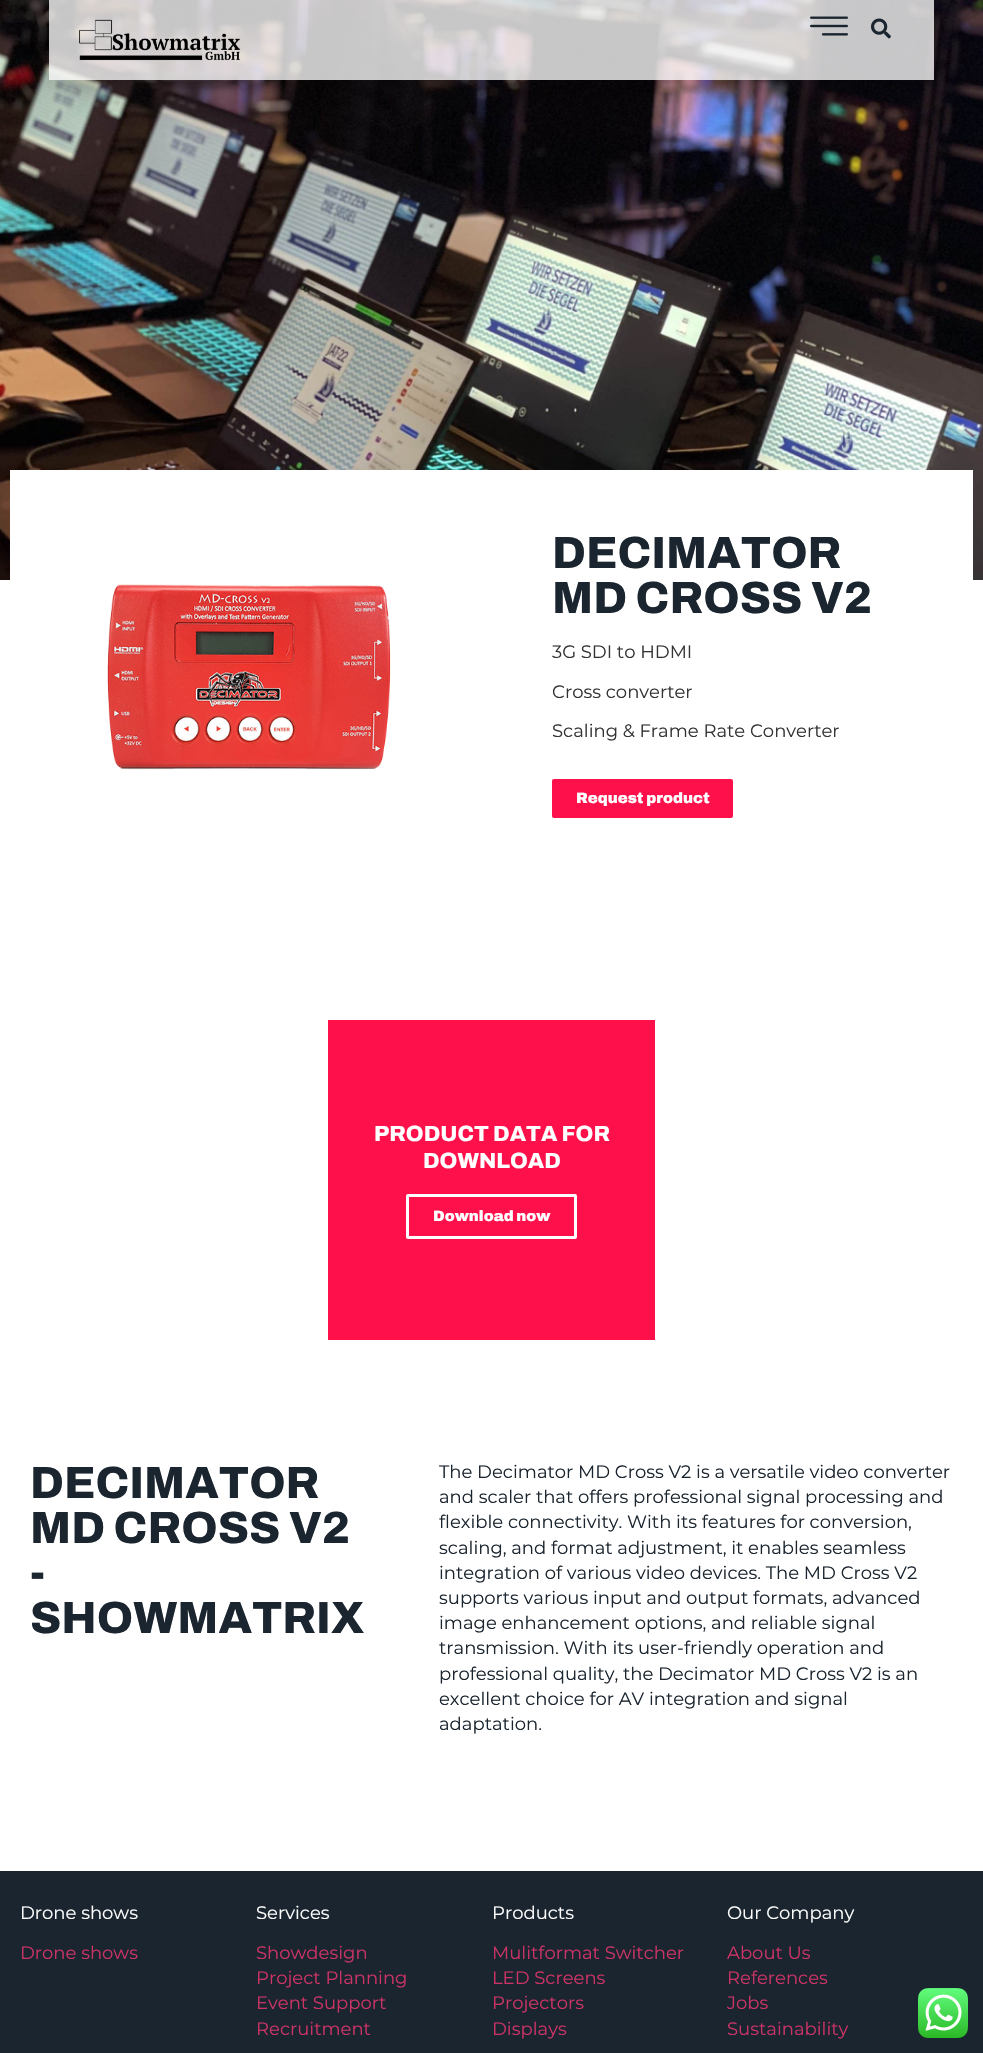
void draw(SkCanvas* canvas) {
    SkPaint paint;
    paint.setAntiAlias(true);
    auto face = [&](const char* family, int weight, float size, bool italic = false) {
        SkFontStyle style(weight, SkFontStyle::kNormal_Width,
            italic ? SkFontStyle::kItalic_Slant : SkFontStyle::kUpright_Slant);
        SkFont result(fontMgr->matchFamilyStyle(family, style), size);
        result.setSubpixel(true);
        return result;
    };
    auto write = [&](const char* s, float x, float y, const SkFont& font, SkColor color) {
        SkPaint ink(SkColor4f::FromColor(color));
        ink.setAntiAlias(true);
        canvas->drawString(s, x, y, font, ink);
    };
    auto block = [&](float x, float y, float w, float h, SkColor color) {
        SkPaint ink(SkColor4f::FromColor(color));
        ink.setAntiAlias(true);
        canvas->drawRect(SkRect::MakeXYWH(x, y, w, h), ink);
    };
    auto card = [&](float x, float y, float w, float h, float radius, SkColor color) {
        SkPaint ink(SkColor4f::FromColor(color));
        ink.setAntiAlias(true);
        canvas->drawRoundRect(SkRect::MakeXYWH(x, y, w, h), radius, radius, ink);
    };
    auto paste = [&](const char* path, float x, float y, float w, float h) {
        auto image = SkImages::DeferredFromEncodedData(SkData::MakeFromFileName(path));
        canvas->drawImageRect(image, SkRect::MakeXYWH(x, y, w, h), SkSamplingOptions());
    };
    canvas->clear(SK_ColorWHITE);
    paste("pic4.png", 0, 0, 983, 580);
    canvas->save();
    canvas->clipPath(SkPathBuilder(SkPathFillType::kEvenOdd).moveTo(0, 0).lineTo(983, 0).lineTo(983, 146).lineTo(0, 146).close().moveTo(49, 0).lineTo(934, 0).lineTo(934, 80).lineTo(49, 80).close().detach(), true);
    paint.setColor(SkColorSetARGB(128, 0, 0, 0));
    paint.setMaskFilter(SkMaskFilter::MakeBlur(kNormal_SkBlurStyle, 24));
    canvas->drawRect(SkRect::MakeXYWH(56, 7, 871, 66), paint);
    paint.setMaskFilter(nullptr);
    canvas->restore();
    block(49, 0, 885, 80, SkColorSetARGB(204, 246, 246, 246));
    paste("pic1.png", 79, 19, 162, 42);
    paste("pic2.png", 810, 16, 38, 20);
    paste("pic3.png", 871, 18, 20, 21);
    block(10, 470, 963, 110, SK_ColorWHITE);
    paste("pic5.png", 107, 584, 284, 186);
    auto kFont1 = face("Archivo", 600, 45);
    write("DECIMATOR", 552, 568, kFont1, SkColorSetRGB(27, 37, 47));
    write("MD CROSS V2", 552, 613, kFont1, SkColorSetRGB(27, 37, 47));
    auto kFont2 = face("Montserrat", 100, 18);
    write("3G SDI to HDMI", 552, 658, kFont2, SkColorSetRGB(51, 51, 51));
    write("Cross converter", 552, 698, kFont2, SkColorSetRGB(51, 51, 51));
    write("Scaling & Frame Rate Converter", 552, 737, kFont2, SkColorSetRGB(51, 51, 51));
    card(552, 779, 181, 39, 2, SkColorSetRGB(254, 17, 75));
    auto kFont3 = face("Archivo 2", 600, 15);
    write("Request product", 576, 803, kFont3, SK_ColorWHITE);
    block(328, 1020, 327, 320, SkColorSetRGB(254, 17, 75));
    auto kFont4 = face("Archivo", 600, 22);
    write("PRODUCT DATA FOR", 374, 1141, kFont4, SK_ColorWHITE);
    write("DOWNLOAD", 423, 1168, kFont4, SK_ColorWHITE);
    paint.setStyle(SkPaint::kStroke_Style);
    paint.setStrokeWidth(3);
    paint.setColor(SK_ColorWHITE);
    canvas->drawRoundRect(SkRect::MakeXYWH(407.5f, 1195.5f, 168, 42), 0.5f, 0.5f, paint);
    write("Download now", 433, 1221, kFont3, SK_ColorWHITE);
    write("DECIMATOR", 30, 1498, kFont1, SkColorSetRGB(27, 37, 47));
    write("MD CROSS V2", 30, 1543, kFont1, SkColorSetRGB(27, 37, 47));
    write("-", 30, 1588, kFont1, SkColorSetRGB(27, 37, 47));
    write("SHOWMATRIX", 30, 1633, kFont1, SkColorSetRGB(27, 37, 47));
    write("The Decimator MD Cross V2 is a versatile video converter", 439, 1478, kFont2, SkColorSetRGB(27, 37, 47));
    write("and scaler that offers professional signal processing and", 439, 1503, kFont2, SkColorSetRGB(27, 37, 47));
    write("flexible connectivity. With its features for conversion,", 439, 1528, kFont2, SkColorSetRGB(27, 37, 47));
    write("scaling, and format adjustment, it enables seamless", 439, 1554, kFont2, SkColorSetRGB(27, 37, 47));
    write("integration of various video devices. The MD Cross V2", 439, 1579, kFont2, SkColorSetRGB(27, 37, 47));
    write("supports various input and output formats, advanced", 439, 1604, kFont2, SkColorSetRGB(27, 37, 47));
    write("image enhancement options, and reliable signal", 439, 1629, kFont2, SkColorSetRGB(27, 37, 47));
    write("transmission. With its user-friendly operation and", 439, 1654, kFont2, SkColorSetRGB(27, 37, 47));
    write("professional quality, the Decimator MD Cross V2 is an", 439, 1680, kFont2, SkColorSetRGB(27, 37, 47));
    write("excellent choice for AV integration and signal", 439, 1705, kFont2, SkColorSetRGB(27, 37, 47));
    write("adaptation.", 439, 1730, kFont2, SkColorSetRGB(27, 37, 47));
    block(0, 1871, 983, 182, SkColorSetRGB(27, 37, 47));
    write("Drone shows", 20, 1919, kFont2, SK_ColorWHITE);
    write("Drone shows", 20, 1959, kFont2, SkColorSetRGB(204, 51, 102));
    write("Services", 256, 1919, kFont2, SK_ColorWHITE);
    write("Showdesign", 256, 1959, kFont2, SkColorSetRGB(204, 51, 102));
    write("Project Planning", 256, 1984, kFont2, SkColorSetRGB(204, 51, 102));
    write("Event Support", 256, 2009, kFont2, SkColorSetRGB(204, 51, 102));
    write("Recruitment", 256, 2035, kFont2, SkColorSetRGB(204, 51, 102));
    write("Products", 492, 1919, kFont2, SK_ColorWHITE);
    write("Mulitformat Switcher", 492, 1959, kFont2, SkColorSetRGB(204, 51, 102));
    write("LED Screens", 492, 1984, kFont2, SkColorSetRGB(204, 51, 102));
    write("Projectors", 492, 2009, kFont2, SkColorSetRGB(204, 51, 102));
    write("Displays", 492, 2035, kFont2, SkColorSetRGB(204, 51, 102));
    write("Our Company", 727, 1919, kFont2, SK_ColorWHITE);
    write("About Us", 727, 1959, kFont2, SkColorSetRGB(204, 51, 102));
    write("References", 727, 1984, kFont2, SkColorSetRGB(204, 51, 102));
    write("Jobs", 727, 2009, kFont2, SkColorSetRGB(204, 51, 102));
    write("Sustainability", 727, 2035, kFont2, SkColorSetRGB(204, 51, 102));
    paste("pic6.png", 918, 1988, 50, 50);
}
